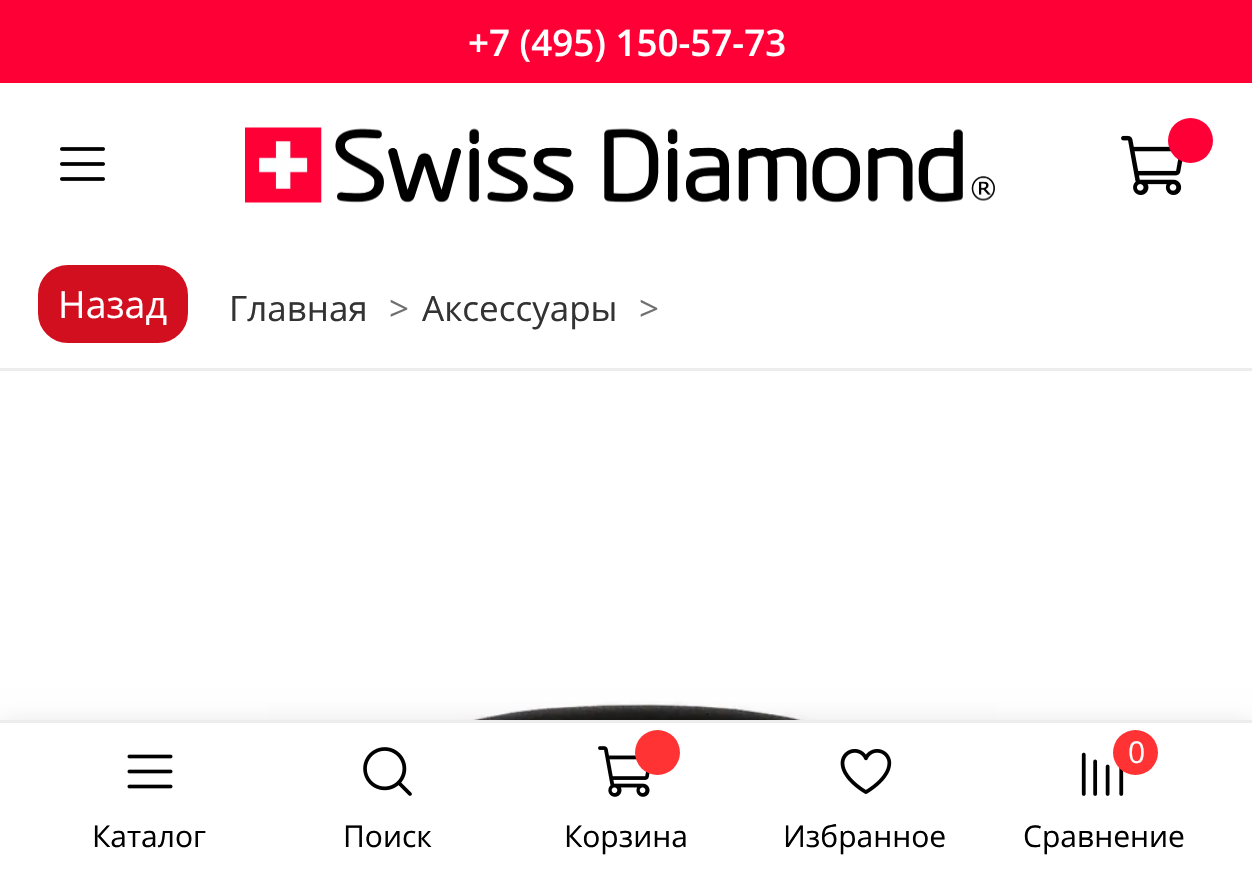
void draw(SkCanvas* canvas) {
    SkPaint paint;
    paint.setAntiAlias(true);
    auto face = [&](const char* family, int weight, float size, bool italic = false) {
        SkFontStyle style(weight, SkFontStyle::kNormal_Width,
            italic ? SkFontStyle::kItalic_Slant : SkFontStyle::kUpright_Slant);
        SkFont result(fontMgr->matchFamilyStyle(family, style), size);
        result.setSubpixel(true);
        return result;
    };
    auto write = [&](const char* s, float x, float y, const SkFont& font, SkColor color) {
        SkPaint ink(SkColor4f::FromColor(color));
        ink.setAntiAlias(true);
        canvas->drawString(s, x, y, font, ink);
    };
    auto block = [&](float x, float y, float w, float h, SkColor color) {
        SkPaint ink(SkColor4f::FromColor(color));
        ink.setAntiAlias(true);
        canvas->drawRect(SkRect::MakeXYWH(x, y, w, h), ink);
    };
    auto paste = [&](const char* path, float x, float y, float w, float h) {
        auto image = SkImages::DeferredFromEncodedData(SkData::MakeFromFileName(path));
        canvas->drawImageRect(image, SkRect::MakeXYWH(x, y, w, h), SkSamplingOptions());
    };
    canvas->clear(SK_ColorWHITE);
    block(0, 0, 1252, 83, SkColorSetRGB(255, 0, 54));
    auto kFont1 = face("Open Sans", 600, 36.75f);
    write("+7 (495) 150-57-73", 468, 56, kFont1, SK_ColorWHITE);
    paste("pic1.png", 60, 147, 45, 34);
    paste("pic2.png", 245, 127, 750, 76);
    paste("pic3.png", 1121, 135, 62, 60);
    paint.setColor(SkColorSetRGB(255, 0, 54));
    canvas->drawCircle(1190.5f, 140.5f, 22.5f, paint);
    paint.setColor(SkColorSetRGB(209, 15, 31));
    canvas->drawRoundRect(SkRect::MakeXYWH(40.5f, 267.5f, 145, 73), 27.5f, 27.5f, paint);
    paint.setStyle(SkPaint::kStroke_Style);
    paint.setStrokeWidth(5);
    canvas->drawRoundRect(SkRect::MakeXYWH(40.5f, 267.5f, 145, 73), 27.5f, 27.5f, paint);
    auto kFont2 = face("Open Sans", 400, 37.5f);
    write("Назад", 58, 318, kFont2, SK_ColorWHITE);
    auto kFont3 = face("Open Sans", 400, 35);
    write("Главная", 229, 321, kFont3, SkColorSetRGB(51, 51, 51));
    write(">", 389, 321, kFont3, SkColorSetRGB(112, 112, 112));
    write("Аксессуары", 422, 321, kFont3, SkColorSetRGB(51, 51, 51));
    write(">", 639, 321, kFont3, SkColorSetRGB(112, 112, 112));
    block(0, 368, 1252, 3, SkColorSetRGB(237, 237, 237));
    paste("pic4.png", 269, 701, 728, 19);
    paint.setStyle(SkPaint::kFill_Style);
    paint.setColor(SkColorSetARGB(31, 0, 0, 0));
    paint.setMaskFilter(SkMaskFilter::MakeBlur(kNormal_SkBlurStyle, 12.5f));
    canvas->drawRect(SkRect::MakeXYWH(0, 725, 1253, 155), paint);
    paint.setMaskFilter(nullptr);
    block(0, 723, 1252, 152, SK_ColorWHITE);
    block(0, 720, 1252, 3, SkColorSetRGB(237, 237, 237));
    paste("pic5.png", 127, 754, 46, 35);
    auto kFont4 = face("Open Sans", 400, 30);
    write("Каталог", 92, 847, kFont4, SK_ColorBLACK);
    paste("pic6.png", 363, 747, 49, 49);
    write("Поиск", 343, 847, kFont4, SK_ColorBLACK);
    paste("pic7.png", 598, 746, 52, 51);
    paint.setColor(SkColorSetRGB(255, 51, 52));
    canvas->drawCircle(657.5f, 752.5f, 22.5f, paint);
    write("Корзина", 564, 847, kFont4, SK_ColorBLACK);
    paste("pic8.png", 840, 749, 52, 45);
    write("Избранное", 783, 847, kFont4, SK_ColorBLACK);
    paste("pic9.png", 1081, 752, 43, 44);
    canvas->drawCircle(1135.5f, 752.5f, 22.5f, paint);
    write("0", 1128, 763, kFont4, SK_ColorWHITE);
    write("Сравнение", 1023, 847, kFont4, SK_ColorBLACK);
}
